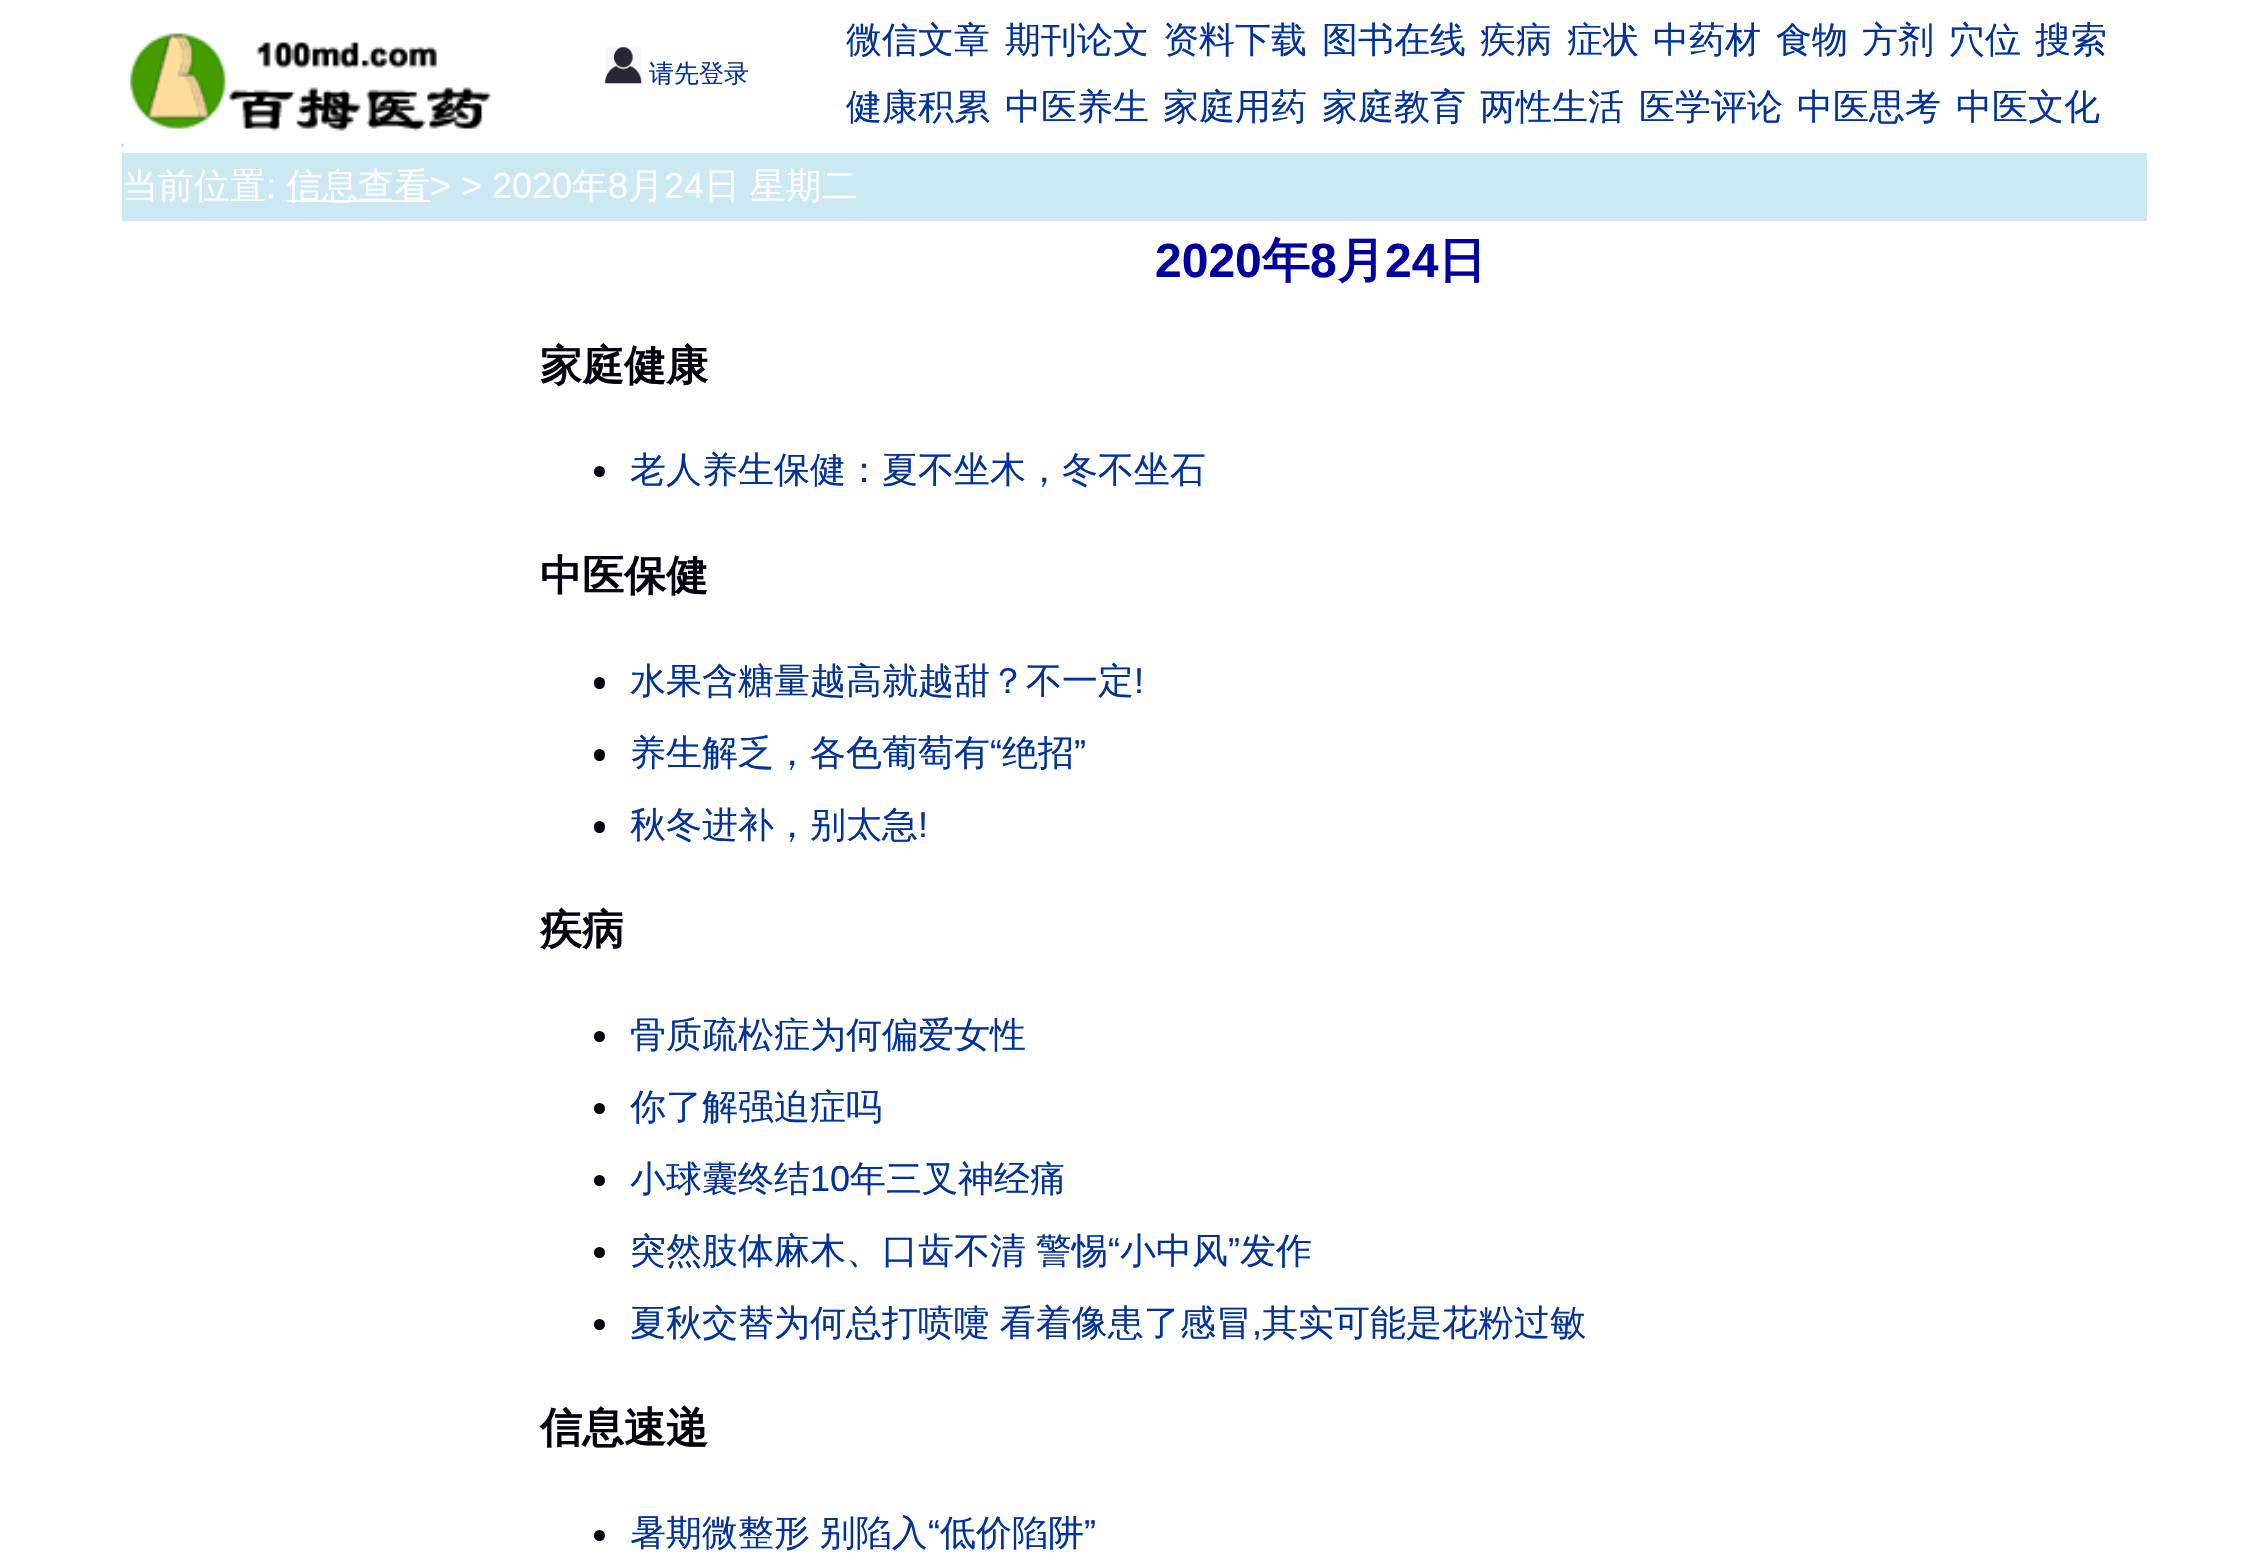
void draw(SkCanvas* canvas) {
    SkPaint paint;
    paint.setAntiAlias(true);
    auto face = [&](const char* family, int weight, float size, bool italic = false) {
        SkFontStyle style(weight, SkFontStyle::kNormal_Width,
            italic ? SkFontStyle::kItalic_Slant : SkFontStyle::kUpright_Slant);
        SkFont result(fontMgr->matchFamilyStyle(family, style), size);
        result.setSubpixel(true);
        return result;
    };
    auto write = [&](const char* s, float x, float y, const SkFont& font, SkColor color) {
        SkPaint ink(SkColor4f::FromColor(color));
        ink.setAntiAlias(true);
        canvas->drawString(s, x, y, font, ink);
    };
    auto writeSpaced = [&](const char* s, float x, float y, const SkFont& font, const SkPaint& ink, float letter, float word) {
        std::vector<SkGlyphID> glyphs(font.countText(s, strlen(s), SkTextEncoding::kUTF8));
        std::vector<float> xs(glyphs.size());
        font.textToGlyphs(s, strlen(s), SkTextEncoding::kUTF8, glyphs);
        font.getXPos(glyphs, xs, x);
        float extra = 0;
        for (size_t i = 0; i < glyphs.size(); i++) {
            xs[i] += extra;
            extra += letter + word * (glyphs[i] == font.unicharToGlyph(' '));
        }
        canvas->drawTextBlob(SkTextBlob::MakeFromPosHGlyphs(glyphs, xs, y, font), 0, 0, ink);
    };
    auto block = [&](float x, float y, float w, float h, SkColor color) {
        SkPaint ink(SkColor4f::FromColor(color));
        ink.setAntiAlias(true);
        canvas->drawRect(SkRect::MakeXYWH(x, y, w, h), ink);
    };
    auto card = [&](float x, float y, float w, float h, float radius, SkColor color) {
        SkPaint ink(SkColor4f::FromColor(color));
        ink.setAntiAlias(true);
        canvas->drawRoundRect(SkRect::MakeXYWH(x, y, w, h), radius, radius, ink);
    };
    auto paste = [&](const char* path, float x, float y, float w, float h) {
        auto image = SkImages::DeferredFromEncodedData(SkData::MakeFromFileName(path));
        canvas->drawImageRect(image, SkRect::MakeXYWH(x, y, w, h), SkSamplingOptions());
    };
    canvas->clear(SK_ColorWHITE);
    paste("pic1.png", 121, 33, 371, 120);
    paste("pic2.png", 605, 47, 37, 37);
    auto kFont1 = face("WenQuanYi Zen Hei", 500, 25);
    write("请先登录", 649, 82, kFont1, SkColorSetRGB(0, 51, 153));
    auto kFont2 = face("WenQuanYi Zen Hei", 500, 36);
    write("微信文章", 846, 52, kFont2, SkColorSetRGB(0, 51, 153));
    write("期刊论文", 1005, 52, kFont2, SkColorSetRGB(0, 51, 153));
    write("资料下载", 1163, 52, kFont2, SkColorSetRGB(0, 51, 153));
    write("图书在线", 1322, 52, kFont2, SkColorSetRGB(0, 51, 153));
    write("疾病", 1480, 52, kFont2, SkColorSetRGB(0, 51, 153));
    write("症状", 1567, 52, kFont2, SkColorSetRGB(0, 51, 153));
    write("中药材", 1653, 52, kFont2, SkColorSetRGB(0, 51, 153));
    write("食物", 1776, 52, kFont2, SkColorSetRGB(0, 51, 153));
    write("方剂", 1862, 52, kFont2, SkColorSetRGB(0, 51, 153));
    write("穴位", 1949, 52, kFont2, SkColorSetRGB(0, 51, 153));
    write("搜索", 2035, 52, kFont2, SkColorSetRGB(0, 51, 153));
    write("健康积累", 846, 119, kFont2, SkColorSetRGB(0, 51, 153));
    write("中医养生", 1005, 119, kFont2, SkColorSetRGB(0, 51, 153));
    write("家庭用药", 1163, 119, kFont2, SkColorSetRGB(0, 51, 153));
    write("家庭教育", 1322, 119, kFont2, SkColorSetRGB(0, 51, 153));
    write("两性生活", 1480, 119, kFont2, SkColorSetRGB(0, 51, 153));
    write("医学评论", 1639, 119, kFont2, SkColorSetRGB(0, 51, 153));
    write("中医思考", 1797, 119, kFont2, SkColorSetRGB(0, 51, 153));
    write("中医文化", 1956, 119, kFont2, SkColorSetRGB(0, 51, 153));
    block(122, 153, 2025, 68, SkColorSetRGB(204, 232, 243));
    write("当前位置", 122, 198, kFont2, SK_ColorWHITE);
    auto kFont3 = face("Liberation Sans", 400, 36);
    write(":", 266, 198, kFont3, SK_ColorWHITE);
    block(286, 200, 144, 2, SK_ColorWHITE);
    write("信息查看", 286, 198, kFont2, SK_ColorWHITE);
    write("> > 2020", 430, 198, kFont3, SK_ColorWHITE);
    write("年", 572, 198, kFont2, SK_ColorWHITE);
    write("8", 608, 198, kFont3, SK_ColorWHITE);
    write("月", 628, 198, kFont2, SK_ColorWHITE);
    write("24", 664, 198, kFont3, SK_ColorWHITE);
    paint.setColor(SK_ColorWHITE);
    writeSpaced("日 星期二", 704, 198, kFont2, paint, 0, -1);
    auto kFont4 = face("Liberation Sans", 700, 48);
    write("2020", 1155, 277, kFont4, SkColorSetRGB(0, 0, 160));
    auto kFont5 = face("WenQuanYi Zen Hei", 700, 48);
    write("年", 1262, 277, kFont5, SkColorSetRGB(0, 0, 160));
    write("8", 1310, 277, kFont4, SkColorSetRGB(0, 0, 160));
    write("月", 1337, 277, kFont5, SkColorSetRGB(0, 0, 160));
    write("24", 1385, 277, kFont4, SkColorSetRGB(0, 0, 160));
    write("日", 1438, 277, kFont5, SkColorSetRGB(0, 0, 160));
    auto kFont6 = face("WenQuanYi Zen Hei", 700, 42);
    write("家庭健康", 540, 380, kFont6, SkColorSetRGB(0, 0, 15));
    paint.setColor(SkColorSetRGB(0, 0, 15));
    canvas->drawCircle(599.5f, 471.5f, 5.5f, paint);
    write("老人养生保健：夏不坐木，冬不坐石", 630, 482, kFont2, SkColorSetRGB(0, 51, 153));
    write("中医保健", 540, 590, kFont6, SkColorSetRGB(0, 0, 15));
    card(594, 677, 11, 12, 5.5f, SkColorSetRGB(0, 0, 15));
    write("水果含糖量越高就越甜？不一定", 630, 693, kFont2, SkColorSetRGB(0, 51, 153));
    write("!", 1134, 693, kFont3, SkColorSetRGB(0, 51, 153));
    write("养生解乏，各色葡萄有", 630, 765, kFont2, SkColorSetRGB(0, 51, 153));
    write("“", 990, 765, kFont3, SkColorSetRGB(0, 51, 153));
    write("绝招", 1002, 765, kFont2, SkColorSetRGB(0, 51, 153));
    write("”", 1074, 765, kFont3, SkColorSetRGB(0, 51, 153));
    card(594, 749, 11, 12, 5.5f, SkColorSetRGB(0, 0, 15));
    card(594, 821, 11, 12, 5.5f, SkColorSetRGB(0, 0, 15));
    write("秋冬进补，别太急", 630, 837, kFont2, SkColorSetRGB(0, 51, 153));
    write("!", 918, 837, kFont3, SkColorSetRGB(0, 51, 153));
    write("疾病", 540, 944, kFont6, SkColorSetRGB(0, 0, 15));
    canvas->drawCircle(599.5f, 1036.5f, 5.5f, paint);
    write("骨质疏松症为何偏爱女性", 630, 1047, kFont2, SkColorSetRGB(0, 51, 153));
    canvas->drawCircle(599.5f, 1108.5f, 5.5f, paint);
    write("你了解强迫症吗", 630, 1119, kFont2, SkColorSetRGB(0, 51, 153));
    canvas->drawCircle(599.5f, 1180.5f, 5.5f, paint);
    write("小球囊终结", 630, 1191, kFont2, SkColorSetRGB(0, 51, 153));
    write("10", 810, 1191, kFont3, SkColorSetRGB(0, 51, 153));
    write("年三叉神经痛", 850, 1191, kFont2, SkColorSetRGB(0, 51, 153));
    paint.setColor(SkColorSetRGB(0, 51, 153));
    writeSpaced("突然肢体麻木、口齿不清 警惕", 630, 1263, kFont2, paint, 0, -1);
    write("“", 1108, 1263, kFont3, SkColorSetRGB(0, 51, 153));
    write("小中风", 1120, 1263, kFont2, SkColorSetRGB(0, 51, 153));
    write("”", 1228, 1263, kFont3, SkColorSetRGB(0, 51, 153));
    write("发作", 1240, 1263, kFont2, SkColorSetRGB(0, 51, 153));
    paint.setColor(SkColorSetRGB(0, 0, 15));
    canvas->drawCircle(599.5f, 1252.5f, 5.5f, paint);
    canvas->drawCircle(599.5f, 1324.5f, 5.5f, paint);
    paint.setColor(SkColorSetRGB(0, 51, 153));
    writeSpaced("夏秋交替为何总打喷嚏 看着像患了感冒", 630, 1335, kFont2, paint, 0, -1);
    write("其实可能是花粉过敏", 1262, 1335, kFont2, SkColorSetRGB(0, 51, 153));
    write(",", 1252, 1335, kFont3, SkColorSetRGB(0, 51, 153));
    write("信息速递", 540, 1442, kFont6, SkColorSetRGB(0, 0, 15));
    writeSpaced("暑期微整形 别陷入", 630, 1545, kFont2, paint, 0, -1);
    write("“", 928, 1545, kFont3, SkColorSetRGB(0, 51, 153));
    write("低价陷阱", 940, 1545, kFont2, SkColorSetRGB(0, 51, 153));
    write("”", 1084, 1545, kFont3, SkColorSetRGB(0, 51, 153));
    paint.setColor(SkColorSetRGB(0, 0, 15));
    canvas->drawCircle(599.5f, 1535.5f, 5.5f, paint);
}
